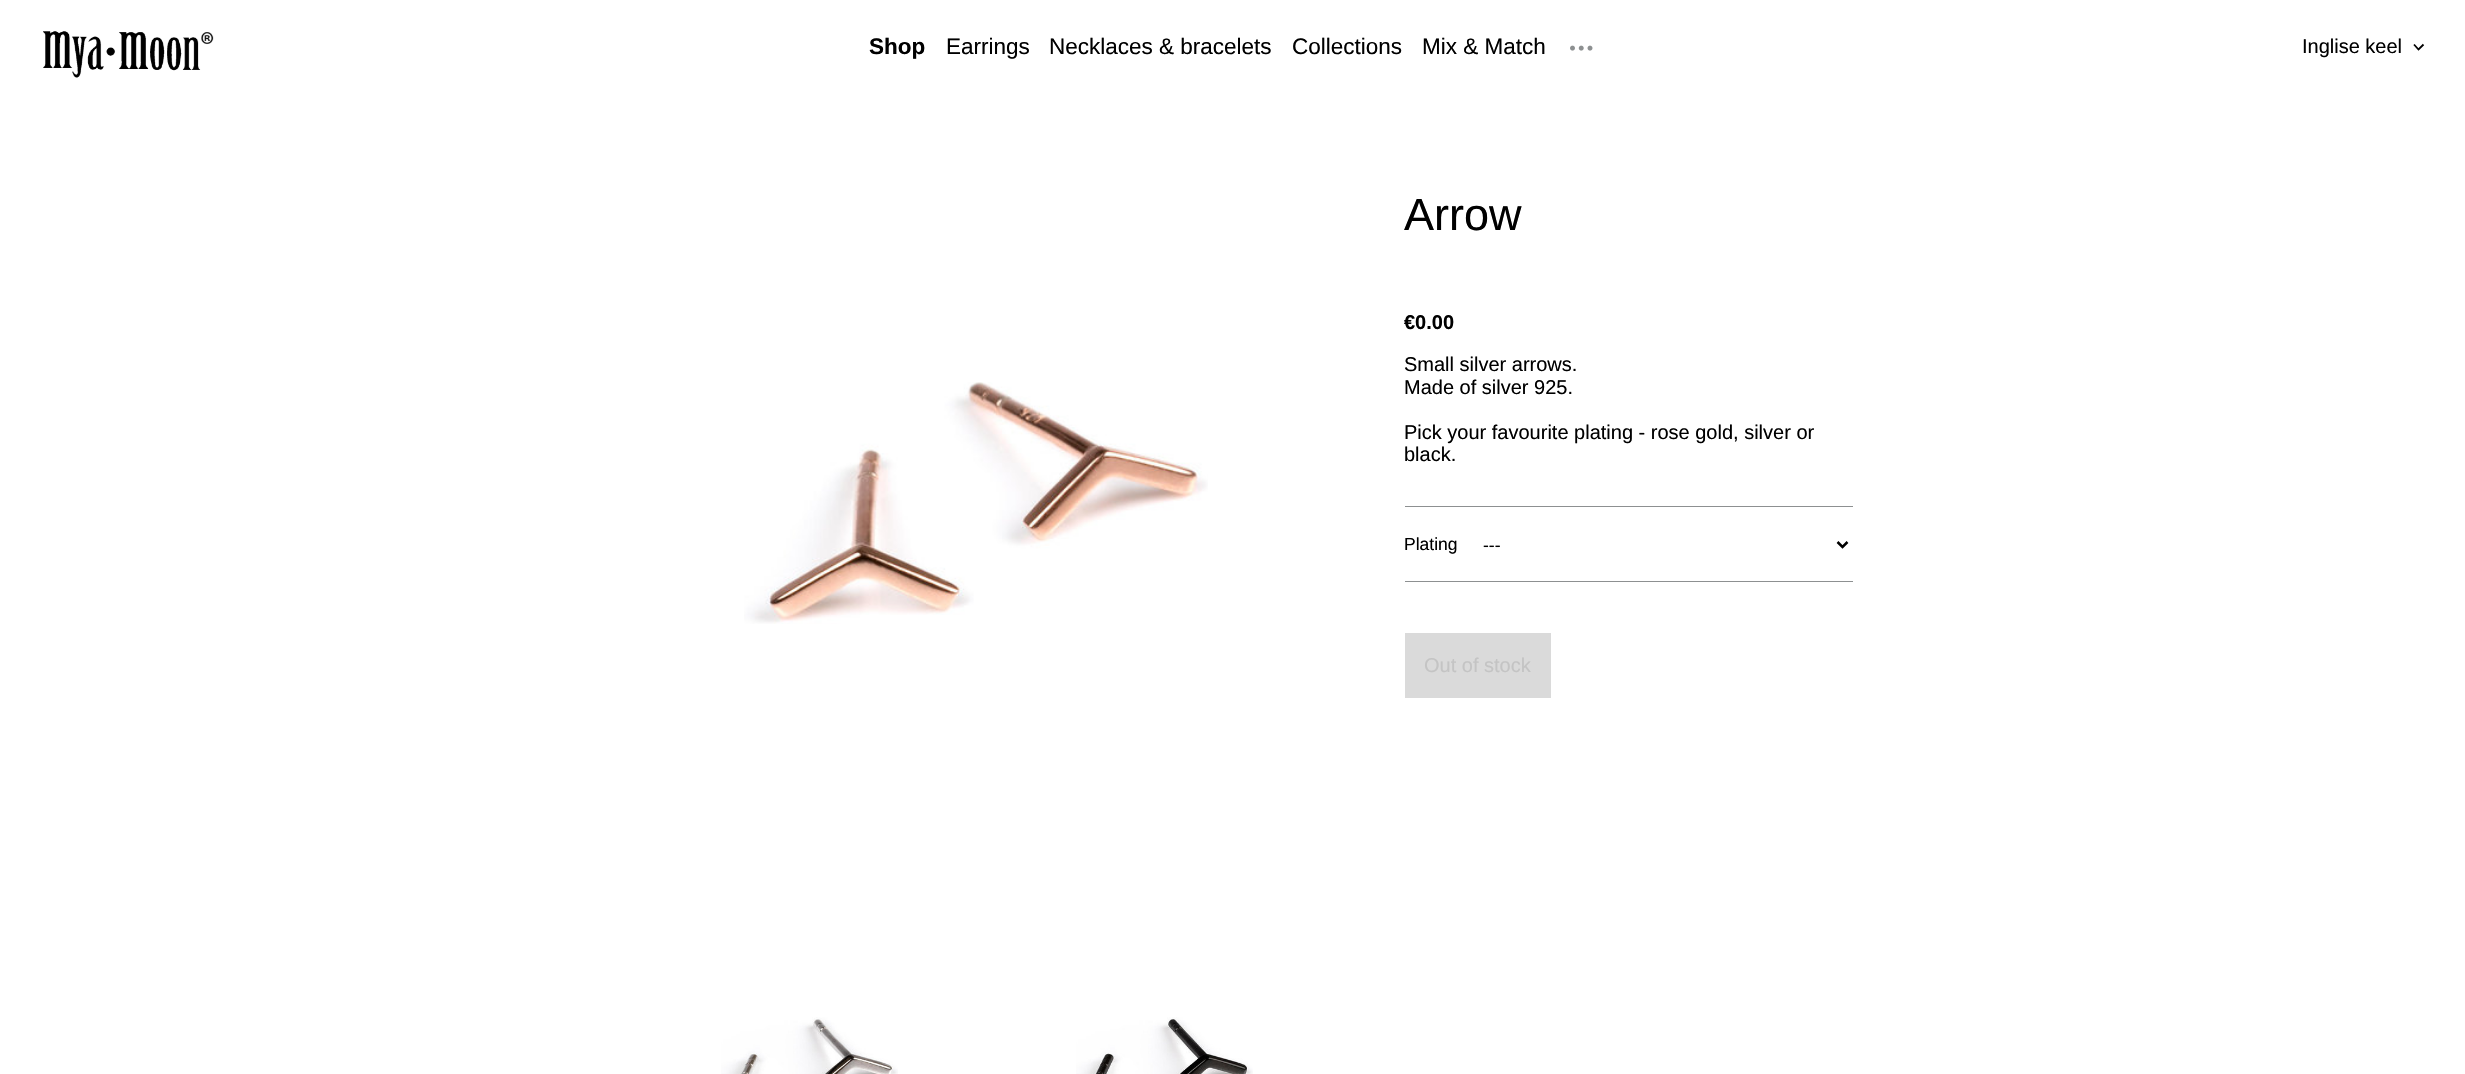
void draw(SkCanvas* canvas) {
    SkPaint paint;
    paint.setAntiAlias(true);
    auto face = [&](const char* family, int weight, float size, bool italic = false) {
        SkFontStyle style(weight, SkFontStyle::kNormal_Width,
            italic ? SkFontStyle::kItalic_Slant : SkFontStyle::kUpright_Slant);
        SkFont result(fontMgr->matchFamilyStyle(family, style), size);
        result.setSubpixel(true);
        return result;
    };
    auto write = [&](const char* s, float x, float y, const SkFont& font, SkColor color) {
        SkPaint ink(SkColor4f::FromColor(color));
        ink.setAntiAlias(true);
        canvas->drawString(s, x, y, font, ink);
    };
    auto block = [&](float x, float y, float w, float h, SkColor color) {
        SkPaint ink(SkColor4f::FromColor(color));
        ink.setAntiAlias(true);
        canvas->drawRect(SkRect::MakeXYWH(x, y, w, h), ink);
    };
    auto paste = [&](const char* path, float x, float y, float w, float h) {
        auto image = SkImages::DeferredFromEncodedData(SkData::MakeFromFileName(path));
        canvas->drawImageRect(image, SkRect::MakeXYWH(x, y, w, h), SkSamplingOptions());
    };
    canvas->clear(SK_ColorWHITE);
    paste("pic1.png", 43, 31, 171, 47);
    auto kFont1 = face("Liberation Sans", 700, 22.5f);
    write("Shop", 869, 54, kFont1, SK_ColorBLACK);
    auto kFont2 = face("Liberation Sans", 400, 22.5f);
    write("Earrings", 946, 54, kFont2, SK_ColorBLACK);
    write("Necklaces & bracelets", 1049, 54, kFont2, SK_ColorBLACK);
    write("Collections", 1292, 54, kFont2, SK_ColorBLACK);
    write("Mix & Match", 1422, 54, kFont2, SK_ColorBLACK);
    paste("pic2.png", 1570, 45, 23, 6);
    auto kFont3 = face("Liberation Sans", 400, 20);
    write("Inglise keel", 2302, 53, kFont3, SK_ColorBLACK);
    paint.setStyle(SkPaint::kStroke_Style);
    paint.setStrokeWidth(1.8f);
    paint.setColor(SK_ColorBLACK);
    canvas->drawPath(SkPathBuilder().moveTo(2414, 44.5f).lineTo(2418.5f, 49.5f).lineTo(2423.5f, 44.5f).detach(), paint);
    paste("pic3.png", 744, 382, 464, 242);
    paste("pic4.png", 721, 1017, 177, 57);
    paste("pic5.png", 1076, 1017, 177, 57);
    auto kFont4 = face("Liberation Sans", 400, 45);
    write("Arrow", 1404, 230, kFont4, SK_ColorBLACK);
    auto kFont5 = face("Liberation Sans", 700, 20);
    write("€0.00", 1404, 329, kFont5, SK_ColorBLACK);
    write("Small silver arrows.", 1404, 371, kFont3, SK_ColorBLACK);
    write("Made of silver 925.", 1404, 394, kFont3, SK_ColorBLACK);
    write("Pick your favourite plating - rose gold, silver or", 1404, 439, kFont3, SK_ColorBLACK);
    write("black.", 1404, 461, kFont3, SK_ColorBLACK);
    block(1405, 506, 448, 1, SkColorSetRGB(141, 144, 145));
    block(1405, 581, 448, 1, SkColorSetRGB(141, 144, 145));
    auto kFont6 = face("Liberation Sans", 400, 17.5f);
    write("Plating", 1404, 550, kFont6, SK_ColorBLACK);
    paint.setStrokeWidth(2.5f);
    canvas->drawPath(SkPathBuilder().moveTo(1837.5f, 542).lineTo(1842.5f, 547).lineTo(1847.5f, 542).detach(), paint);
    write("---", 1483, 551, kFont6, SK_ColorBLACK);
    block(1405, 633, 146, 65, SkColorSetRGB(218, 218, 218));
    write("Out of stock", 1424, 672, kFont3, SkColorSetRGB(196, 196, 196));
}
